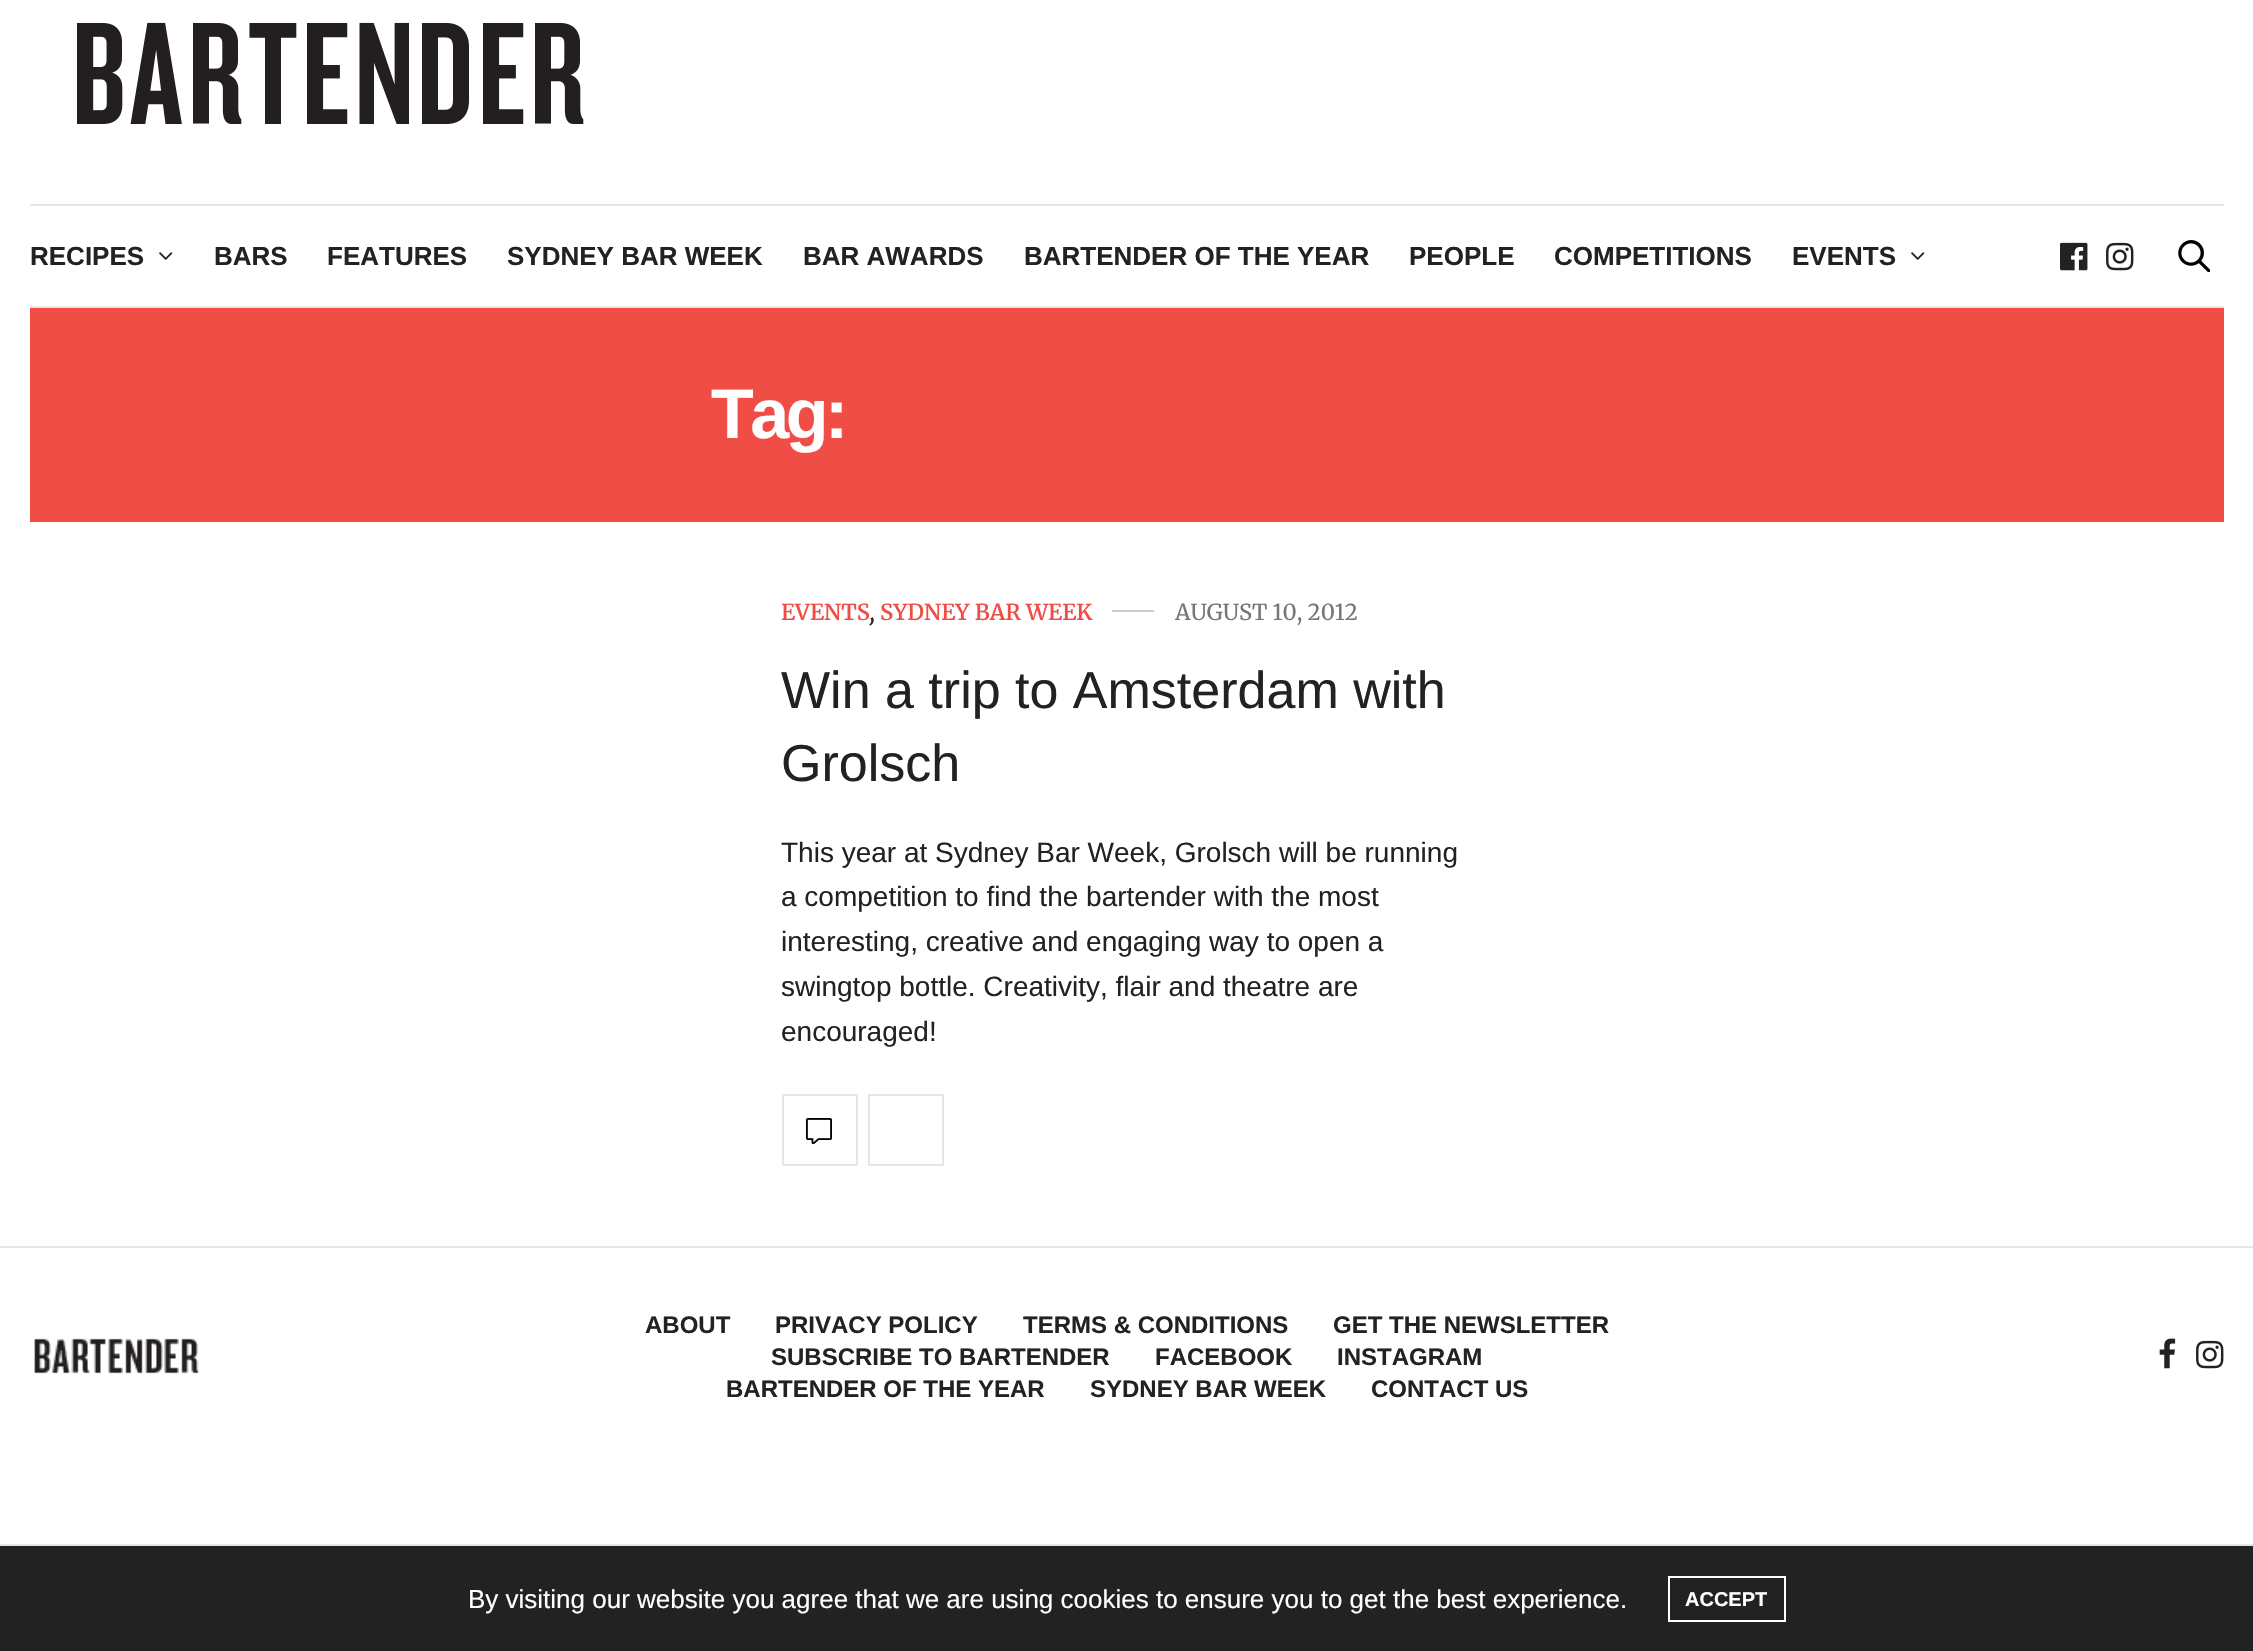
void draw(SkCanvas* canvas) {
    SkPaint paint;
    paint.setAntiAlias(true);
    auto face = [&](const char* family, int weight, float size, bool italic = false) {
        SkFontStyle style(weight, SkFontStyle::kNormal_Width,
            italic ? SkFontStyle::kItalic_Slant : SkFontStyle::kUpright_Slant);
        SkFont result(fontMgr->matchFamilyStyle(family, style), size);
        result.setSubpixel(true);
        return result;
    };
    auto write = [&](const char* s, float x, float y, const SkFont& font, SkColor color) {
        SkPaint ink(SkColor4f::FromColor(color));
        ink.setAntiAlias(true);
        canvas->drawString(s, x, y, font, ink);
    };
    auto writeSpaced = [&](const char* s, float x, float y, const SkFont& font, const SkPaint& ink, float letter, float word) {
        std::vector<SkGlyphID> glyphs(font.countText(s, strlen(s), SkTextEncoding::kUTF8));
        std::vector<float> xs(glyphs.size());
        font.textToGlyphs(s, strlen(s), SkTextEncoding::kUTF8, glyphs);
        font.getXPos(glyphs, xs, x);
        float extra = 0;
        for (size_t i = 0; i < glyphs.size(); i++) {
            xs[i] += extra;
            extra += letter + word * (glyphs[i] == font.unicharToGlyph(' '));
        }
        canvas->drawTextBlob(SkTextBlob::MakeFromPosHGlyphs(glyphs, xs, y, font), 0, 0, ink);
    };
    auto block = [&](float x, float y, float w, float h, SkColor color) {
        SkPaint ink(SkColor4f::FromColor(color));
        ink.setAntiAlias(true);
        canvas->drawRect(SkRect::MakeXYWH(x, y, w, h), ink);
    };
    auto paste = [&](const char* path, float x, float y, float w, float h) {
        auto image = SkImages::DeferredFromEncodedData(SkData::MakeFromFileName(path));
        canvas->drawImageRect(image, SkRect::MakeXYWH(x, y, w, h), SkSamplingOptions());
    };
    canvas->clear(SK_ColorWHITE);
    block(30, 204, 2194, 2, SkColorSetRGB(230, 230, 230));
    paste("pic1.png", 77, 22, 507, 102);
    block(30, 306, 2194, 2, SkColorSetRGB(230, 230, 230));
    auto kFont1 = face("Liberation Sans", 700, 26);
    write("RECIPES", 30, 265, kFont1, SkColorSetRGB(34, 34, 34));
    paste("pic2.png", 159, 252, 14, 8);
    write("BARS", 214, 265, kFont1, SkColorSetRGB(34, 34, 34));
    write("FEATURES", 327, 265, kFont1, SkColorSetRGB(34, 34, 34));
    write("SYDNEY BAR WEEK", 507, 265, kFont1, SkColorSetRGB(34, 34, 34));
    write("BAR AWARDS", 803, 265, kFont1, SkColorSetRGB(34, 34, 34));
    write("BARTENDER OF THE YEAR", 1024, 265, kFont1, SkColorSetRGB(34, 34, 34));
    write("PEOPLE", 1409, 265, kFont1, SkColorSetRGB(34, 34, 34));
    write("COMPETITIONS", 1554, 265, kFont1, SkColorSetRGB(34, 34, 34));
    write("EVENTS", 1792, 265, kFont1, SkColorSetRGB(34, 34, 34));
    paste("pic2.png", 1911, 252, 14, 8);
    paste("pic3.png", 2060, 242, 28, 29);
    paste("pic4.png", 2106, 242, 28, 29);
    paste("pic5.png", 2178, 240, 32, 32);
    block(30, 308, 2194, 214, SkColorSetRGB(240, 77, 70));
    auto kFont2 = face("Liberation Sans", 700, 70);
    paint.setColor(SK_ColorWHITE);
    writeSpaced("Tag:", 711, 438, kFont2, paint, -3.5f, 0);
    auto kFont3 = face("Merriweather", 600, 22);
    write("EVENTS", 781, 620, kFont3, SkColorSetRGB(240, 77, 70));
    auto kFont4 = face("Merriweather", 600, 22, true);
    write(",", 870, 620, kFont4, SkColorSetRGB(34, 34, 34));
    write("SYDNEY BAR WEEK", 880, 620, kFont3, SkColorSetRGB(240, 77, 70));
    block(1112, 610, 42, 2, SkColorSetRGB(204, 204, 204));
    auto kFont5 = face("Merriweather", 400, 22);
    write("AUGUST 10, 2012", 1175, 620, kFont5, SkColorSetRGB(118, 118, 118));
    auto kFont6 = face("Liberation Sans", 400, 52);
    write("Win a trip to Amsterdam with", 781, 708, kFont6, SkColorSetRGB(34, 34, 34));
    write("Grolsch", 781, 781, kFont6, SkColorSetRGB(34, 34, 34));
    auto kFont7 = face("Liberation Sans", 400, 28);
    write("This year at Sydney Bar Week, Grolsch will be running", 781, 862, kFont7, SkColorSetRGB(34, 34, 34));
    write("a competition to find the bartender with the most", 781, 906, kFont7, SkColorSetRGB(34, 34, 34));
    write("interesting, creative and engaging way to open a", 781, 951, kFont7, SkColorSetRGB(34, 34, 34));
    write("swingtop bottle. Creativity, flair and theatre are", 781, 996, kFont7, SkColorSetRGB(34, 34, 34));
    write("encouraged!", 781, 1041, kFont7, SkColorSetRGB(34, 34, 34));
    paint.setStyle(SkPaint::kStroke_Style);
    paint.setStrokeWidth(2);
    paint.setColor(SkColorSetRGB(230, 230, 230));
    canvas->drawRect(SkRect::MakeXYWH(783, 1095, 74, 70), paint);
    paste("pic6.png", 806, 1118, 26, 26);
    canvas->drawRect(SkRect::MakeXYWH(869, 1095, 74, 70), paint);
    block(0, 1246, 2253, 2, SkColorSetRGB(230, 230, 230));
    paste("pic7.png", 34, 1338, 165, 36);
    auto kFont8 = face("Liberation Sans", 700, 24);
    write("ABOUT", 645, 1333, kFont8, SkColorSetRGB(34, 34, 34));
    write("PRIVACY POLICY", 775, 1333, kFont8, SkColorSetRGB(34, 34, 34));
    write("TERMS & CONDITIONS", 1023, 1333, kFont8, SkColorSetRGB(34, 34, 34));
    write("GET THE NEWSLETTER", 1333, 1333, kFont8, SkColorSetRGB(34, 34, 34));
    write("SUBSCRIBE TO BARTENDER", 771, 1365, kFont8, SkColorSetRGB(34, 34, 34));
    write("FACEBOOK", 1155, 1365, kFont8, SkColorSetRGB(34, 34, 34));
    write("INSTAGRAM", 1337, 1365, kFont8, SkColorSetRGB(34, 34, 34));
    write("BARTENDER OF THE YEAR", 726, 1397, kFont8, SkColorSetRGB(34, 34, 34));
    write("SYDNEY BAR WEEK", 1090, 1397, kFont8, SkColorSetRGB(34, 34, 34));
    write("CONTACT US", 1371, 1397, kFont8, SkColorSetRGB(34, 34, 34));
    paste("pic8.png", 2159, 1338, 17, 31);
    paste("pic4.png", 2196, 1340, 28, 29);
    block(0, 1544, 2253, 2, SkColorSetRGB(230, 230, 230));
    block(0, 1546, 2253, 105, SkColorSetRGB(34, 34, 34));
    auto kFont9 = face("Liberation Sans", 400, 26);
    write("By visiting our website you agree that we are using cookies to ensure you to get the best experience.", 468, 1608, kFont9, SK_ColorWHITE);
    paint.setColor(SK_ColorWHITE);
    canvas->drawRect(SkRect::MakeXYWH(1669, 1577, 116, 44), paint);
    auto kFont10 = face("Liberation Sans", 700, 20);
    write("ACCEPT", 1685, 1606, kFont10, SK_ColorWHITE);
}
